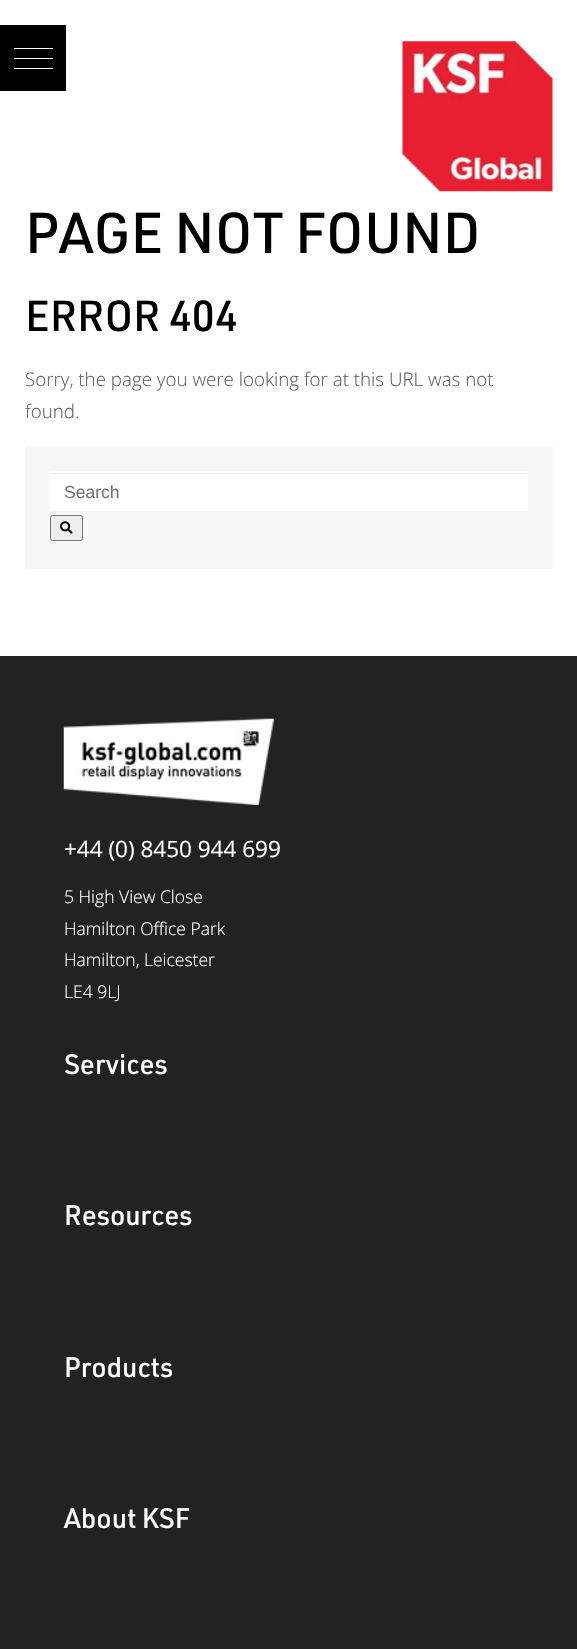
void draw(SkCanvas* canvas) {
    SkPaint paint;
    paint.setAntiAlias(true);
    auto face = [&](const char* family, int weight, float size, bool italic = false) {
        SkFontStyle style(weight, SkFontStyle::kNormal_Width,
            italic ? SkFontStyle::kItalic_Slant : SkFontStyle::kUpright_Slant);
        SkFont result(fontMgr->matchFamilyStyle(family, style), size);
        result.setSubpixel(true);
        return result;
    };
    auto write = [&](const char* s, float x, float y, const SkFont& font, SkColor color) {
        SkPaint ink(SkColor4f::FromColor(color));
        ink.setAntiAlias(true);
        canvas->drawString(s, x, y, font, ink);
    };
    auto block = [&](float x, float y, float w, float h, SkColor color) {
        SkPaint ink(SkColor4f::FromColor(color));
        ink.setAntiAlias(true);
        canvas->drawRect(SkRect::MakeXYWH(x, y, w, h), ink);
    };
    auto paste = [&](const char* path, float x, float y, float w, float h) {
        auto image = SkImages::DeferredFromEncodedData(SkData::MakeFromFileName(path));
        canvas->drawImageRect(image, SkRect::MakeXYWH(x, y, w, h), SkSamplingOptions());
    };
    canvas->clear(SK_ColorWHITE);
    block(0, 25, 66, 66, SK_ColorBLACK);
    block(14, 58, 39, 1, SK_ColorWHITE);
    block(14, 48, 39, 1, SK_ColorWHITE);
    block(14, 68, 39, 1, SK_ColorWHITE);
    paste("pic1.png", 402, 41, 151, 151);
    auto kFont1 = face("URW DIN", 500, 56.25f);
    write("PAGE NOT FOUND", 25, 253, kFont1, SK_ColorBLACK);
    auto kFont2 = face("URW DIN", 500, 42.5f);
    write("ERROR 404", 25, 331, kFont2, SK_ColorBLACK);
    auto kFont3 = face("Open Sans", 300, 18.75f);
    write("Sorry, the page you were looking for at this URL was not", 25, 386, kFont3, SkColorSetRGB(96, 96, 96));
    write("found.", 25, 418, kFont3, SkColorSetRGB(96, 96, 96));
    block(25, 446, 528, 123, SkColorSetRGB(248, 248, 248));
    block(50, 471, 478, 40, SK_ColorWHITE);
    block(51, 473, 475, 1, SkColorSetRGB(236, 236, 236));
    auto kFont4 = face("Liberation Sans", 400, 17.5f);
    write("Search", 64, 498, kFont4, SkColorSetRGB(117, 117, 117));
    paint.setColor(SkColorSetRGB(239, 239, 239));
    canvas->drawRoundRect(SkRect::MakeXYWH(50.5f, 515.5f, 32, 25), 2, 2, paint);
    paint.setStyle(SkPaint::kStroke_Style);
    paint.setStrokeWidth(1);
    paint.setColor(SkColorSetRGB(118, 118, 118));
    canvas->drawRoundRect(SkRect::MakeXYWH(50.5f, 515.5f, 32, 25), 2, 2, paint);
    paste("pic2.png", 60, 521, 13, 13);
    block(0, 656, 577, 993, SkColorSetRGB(34, 34, 34));
    paste("pic3.png", 63, 718, 211, 87);
    auto kFont5 = face("Open Sans", 400, 22.5f);
    write("+44 (0) 8450 944 699", 64, 857, kFont5, SK_ColorWHITE);
    auto kFont6 = face("Open Sans", 300, 17.5f);
    write("5 High View Close", 64, 903, kFont6, SK_ColorWHITE);
    write("Hamilton Office Park", 64, 935, kFont6, SK_ColorWHITE);
    write("Hamilton, Leicester", 64, 966, kFont6, SK_ColorWHITE);
    write("LE4 9LJ", 64, 998, kFont6, SK_ColorWHITE);
    auto kFont7 = face("URW DIN", 500, 27.5f);
    write("Services", 64, 1074, kFont7, SK_ColorWHITE);
    write("Resources", 64, 1225, kFont7, SK_ColorWHITE);
    write("Products", 64, 1377, kFont7, SK_ColorWHITE);
    write("About KSF", 64, 1528, kFont7, SK_ColorWHITE);
}
